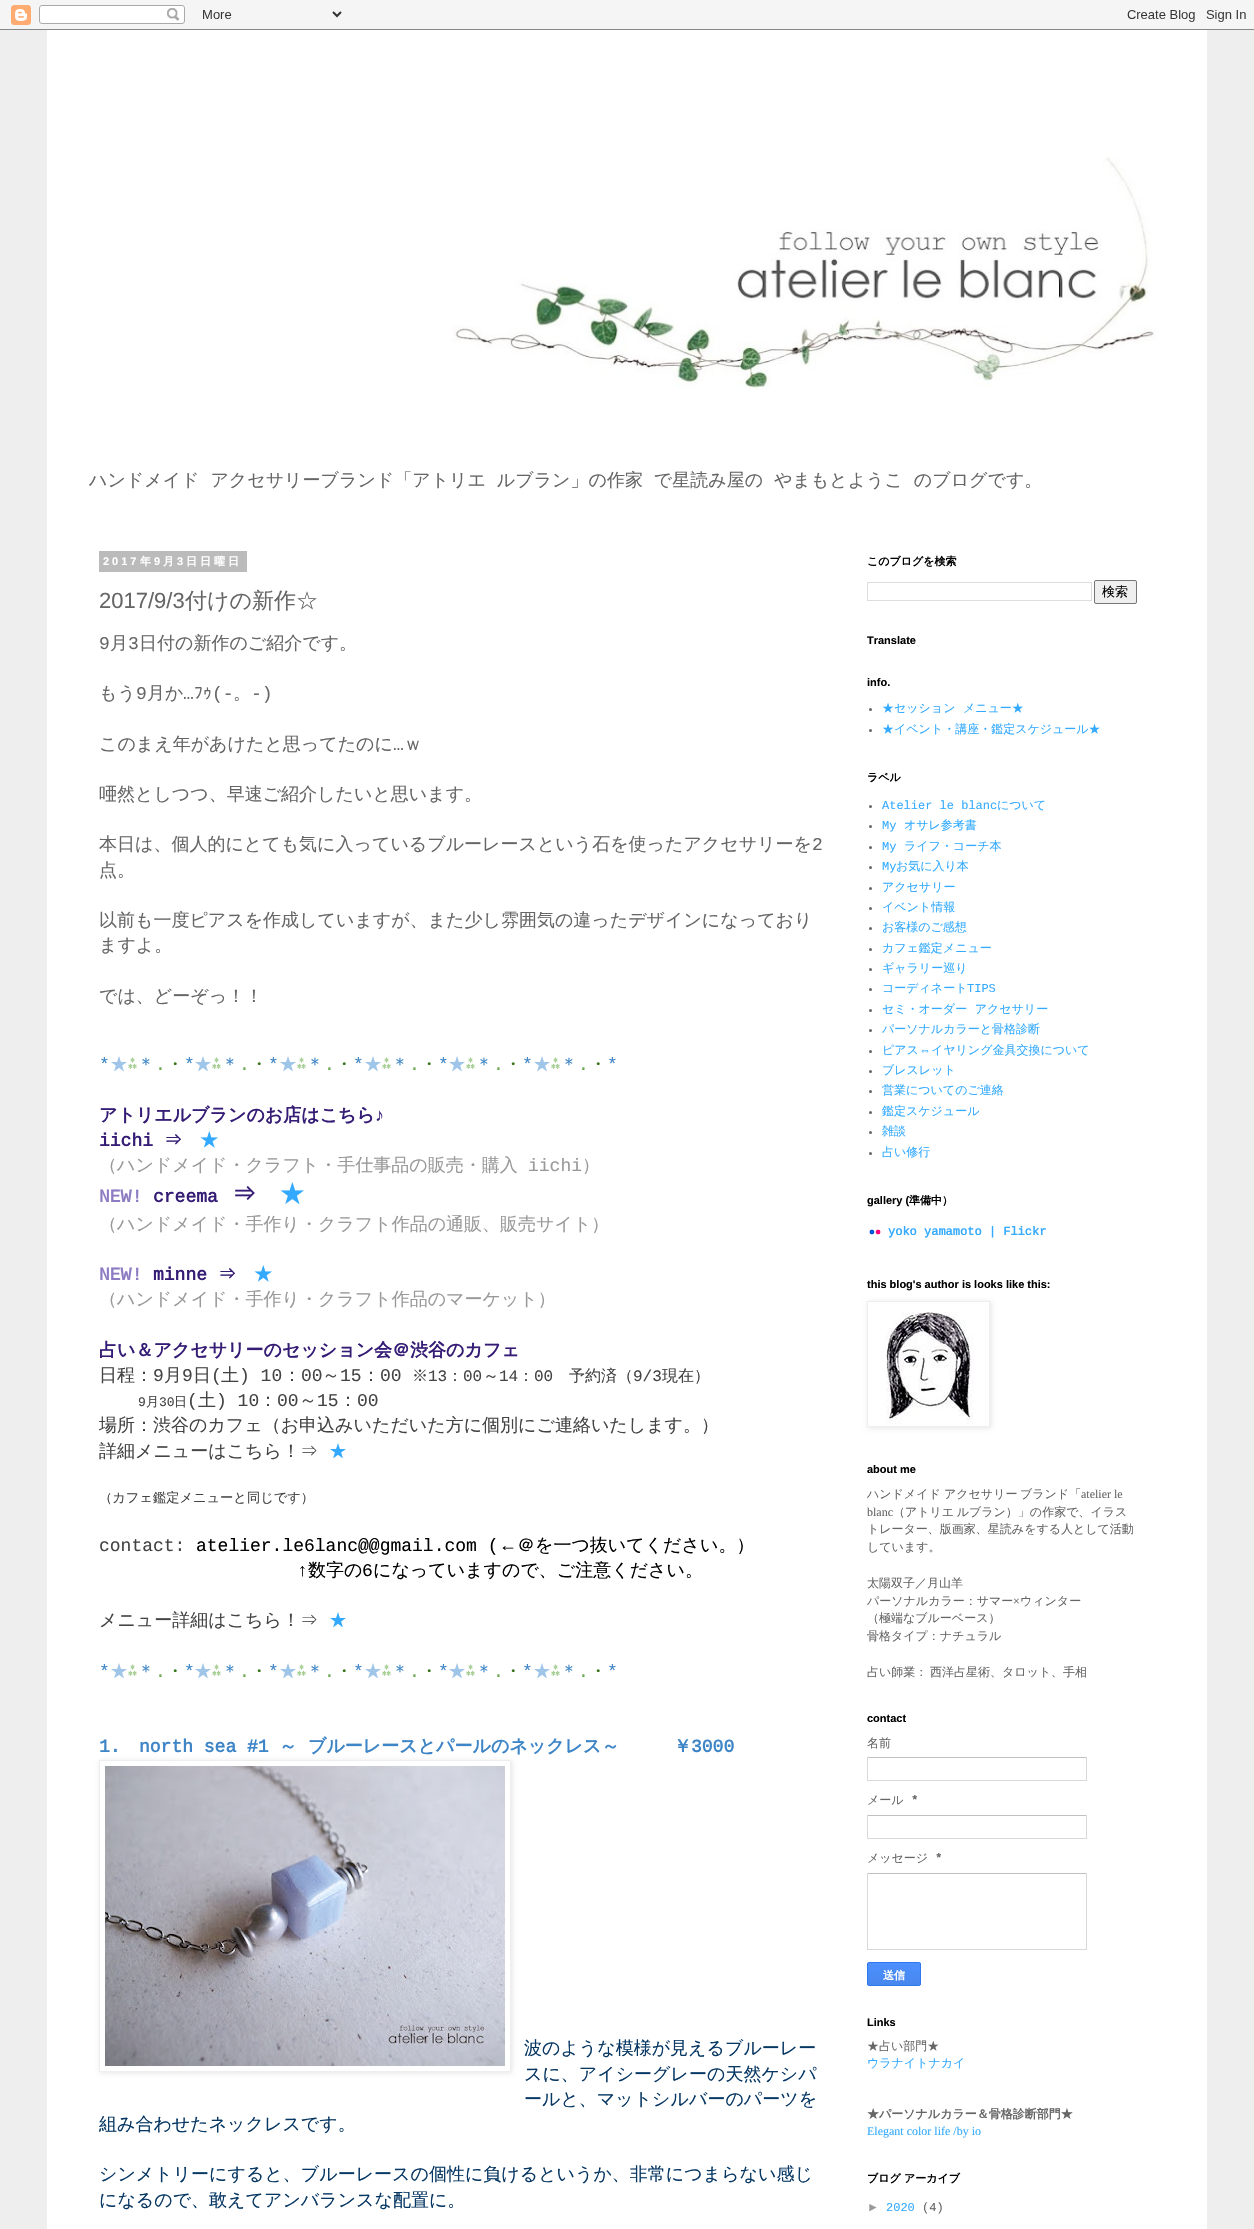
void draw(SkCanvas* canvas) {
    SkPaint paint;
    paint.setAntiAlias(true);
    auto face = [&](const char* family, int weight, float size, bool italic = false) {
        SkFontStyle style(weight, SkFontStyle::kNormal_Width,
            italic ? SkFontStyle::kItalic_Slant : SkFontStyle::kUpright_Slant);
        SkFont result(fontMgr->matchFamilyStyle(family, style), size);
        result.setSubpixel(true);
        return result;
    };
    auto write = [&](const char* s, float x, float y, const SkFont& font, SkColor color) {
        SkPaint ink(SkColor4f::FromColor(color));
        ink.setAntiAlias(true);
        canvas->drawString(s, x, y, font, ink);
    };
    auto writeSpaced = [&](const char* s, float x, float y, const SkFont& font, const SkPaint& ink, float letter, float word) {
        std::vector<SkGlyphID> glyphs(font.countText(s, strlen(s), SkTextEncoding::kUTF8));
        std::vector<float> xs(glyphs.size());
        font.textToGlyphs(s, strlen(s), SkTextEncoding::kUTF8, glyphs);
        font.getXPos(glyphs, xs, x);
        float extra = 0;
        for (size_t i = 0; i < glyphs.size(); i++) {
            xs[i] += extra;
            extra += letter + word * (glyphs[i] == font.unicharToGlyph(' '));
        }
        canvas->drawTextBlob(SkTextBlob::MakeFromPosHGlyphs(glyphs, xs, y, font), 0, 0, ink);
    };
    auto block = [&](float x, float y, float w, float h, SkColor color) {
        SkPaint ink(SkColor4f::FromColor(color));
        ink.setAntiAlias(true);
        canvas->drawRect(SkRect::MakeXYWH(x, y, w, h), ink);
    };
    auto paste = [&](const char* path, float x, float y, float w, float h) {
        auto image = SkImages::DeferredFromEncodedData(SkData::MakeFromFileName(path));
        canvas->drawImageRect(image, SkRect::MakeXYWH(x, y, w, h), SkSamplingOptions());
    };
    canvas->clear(SkColorSetRGB(238, 238, 238));
    paste("pic1.png", 0, 0, 1254, 30);
    block(47, 30, 1160, 2199, SK_ColorWHITE);
    paste("pic2.png", 452, 157, 704, 232);
    auto kFont1 = face("WenQuanYi Zen Hei", 500, 18);
    paint.setColor(SkColorSetRGB(102, 102, 102));
    writeSpaced("ハンドメイド アクセサリーブランド「アトリエ ルブラン」の作家 で星読み屋の やまもとようこ のブログです。", 89, 486, kFont1, paint, 0, 5.5f);
    block(99, 551, 148, 21, SkColorSetRGB(187, 187, 187));
    auto kFont2 = face("Liberation Sans", 700, 11);
    paint.setColor(SK_ColorWHITE);
    writeSpaced("2017", 103, 565, kFont2, paint, 3, 0);
    auto kFont3 = face("WenQuanYi Zen Hei", 700, 11);
    writeSpaced("年", 140, 565, kFont3, paint, 3, 0);
    writeSpaced("9", 154, 565, kFont2, paint, 3, 0);
    writeSpaced("月", 163, 565, kFont3, paint, 3, 0);
    writeSpaced("3", 177, 565, kFont2, paint, 3, 0);
    writeSpaced("日日曜日", 186, 565, kFont3, paint, 3, 0);
    auto kFont4 = face("Liberation Sans", 400, 22);
    write("2017/9/3", 99, 608, kFont4, SkColorSetRGB(102, 102, 102));
    auto kFont5 = face("WenQuanYi Zen Hei", 500, 22);
    write("付けの新作☆", 185, 608, kFont5, SkColorSetRGB(102, 102, 102));
    auto kFont6 = face("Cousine", 400, 18);
    write("9", 99, 649, kFont6, SkColorSetRGB(102, 102, 102));
    write("月", 110, 649, kFont1, SkColorSetRGB(102, 102, 102));
    write("3", 128, 649, kFont6, SkColorSetRGB(102, 102, 102));
    write("日付の新作のご紹介です。", 139, 649, kFont1, SkColorSetRGB(102, 102, 102));
    write("もう", 99, 699, kFont1, SkColorSetRGB(102, 102, 102));
    write("9", 136, 699, kFont6, SkColorSetRGB(102, 102, 102));
    write("月か", 147, 699, kFont1, SkColorSetRGB(102, 102, 102));
    write("…", 183, 699, kFont6, SkColorSetRGB(102, 102, 102));
    auto kFont7 = face("IPAPGothic", 400, 18);
    write("ﾌｩ", 194, 699, kFont7, SkColorSetRGB(102, 102, 102));
    write("(-", 212, 699, kFont6, SkColorSetRGB(102, 102, 102));
    write("。", 233, 699, kFont1, SkColorSetRGB(102, 102, 102));
    write("-)", 251, 699, kFont6, SkColorSetRGB(102, 102, 102));
    write("このまえ年があけたと思ってたのに", 99, 750, kFont1, SkColorSetRGB(102, 102, 102));
    write("…", 393, 750, kFont6, SkColorSetRGB(102, 102, 102));
    write("ｗ", 404, 750, kFont1, SkColorSetRGB(102, 102, 102));
    write("唖然としつつ、早速ご紹介したいと思います。", 99, 800, kFont1, SkColorSetRGB(102, 102, 102));
    write("本日は、個人的にとても気に入っているブルーレースという石を使ったアクセサリーを", 99, 850, kFont1, SkColorSetRGB(102, 102, 102));
    write("2", 812, 850, kFont6, SkColorSetRGB(102, 102, 102));
    write("点。", 99, 876, kFont1, SkColorSetRGB(102, 102, 102));
    write("以前も一度ピアスを作成していますが、また少し雰囲気の違ったデザインになっており", 99, 926, kFont1, SkColorSetRGB(102, 102, 102));
    write("ますよ。", 99, 951, kFont1, SkColorSetRGB(102, 102, 102));
    write("では、どーぞっ！！", 99, 1002, kFont1, SkColorSetRGB(102, 102, 102));
    write("*", 99, 1070, kFont6, SkColorSetRGB(61, 133, 198));
    write("★", 110, 1070, kFont1, SkColorSetRGB(159, 197, 232));
    write("⁂", 128, 1070, kFont7, SkColorSetRGB(147, 196, 125));
    write("＊", 137, 1070, kFont1, SkColorSetRGB(61, 133, 198));
    write("・", 166, 1070, kFont1, SkColorSetRGB(56, 118, 29));
    write("*", 184, 1070, kFont6, SkColorSetRGB(61, 133, 198));
    write("★", 194, 1070, kFont1, SkColorSetRGB(159, 197, 232));
    write("⁂", 212, 1070, kFont7, SkColorSetRGB(147, 196, 125));
    write("＊", 221, 1070, kFont1, SkColorSetRGB(61, 133, 198));
    write("・", 250, 1070, kFont1, SkColorSetRGB(56, 118, 29));
    write("*", 268, 1070, kFont6, SkColorSetRGB(61, 133, 198));
    write("★", 279, 1070, kFont1, SkColorSetRGB(159, 197, 232));
    write("⁂", 297, 1070, kFont7, SkColorSetRGB(147, 196, 125));
    write("＊", 306, 1070, kFont1, SkColorSetRGB(61, 133, 198));
    write("・", 335, 1070, kFont1, SkColorSetRGB(56, 118, 29));
    write("*", 353, 1070, kFont6, SkColorSetRGB(61, 133, 198));
    write("★", 364, 1070, kFont1, SkColorSetRGB(159, 197, 232));
    write("⁂", 382, 1070, kFont7, SkColorSetRGB(147, 196, 125));
    write("＊", 391, 1070, kFont1, SkColorSetRGB(61, 133, 198));
    write("・", 420, 1070, kFont1, SkColorSetRGB(56, 118, 29));
    write("*", 438, 1070, kFont6, SkColorSetRGB(61, 133, 198));
    write("★", 448, 1070, kFont1, SkColorSetRGB(159, 197, 232));
    write("⁂", 466, 1070, kFont7, SkColorSetRGB(147, 196, 125));
    write("＊", 475, 1070, kFont1, SkColorSetRGB(61, 133, 198));
    write("・", 504, 1070, kFont1, SkColorSetRGB(56, 118, 29));
    write("*", 522, 1070, kFont6, SkColorSetRGB(61, 133, 198));
    write("★", 533, 1070, kFont1, SkColorSetRGB(159, 197, 232));
    write("⁂", 551, 1070, kFont7, SkColorSetRGB(147, 196, 125));
    write("＊", 560, 1070, kFont1, SkColorSetRGB(61, 133, 198));
    write("・", 589, 1070, kFont1, SkColorSetRGB(56, 118, 29));
    write("*", 607, 1070, kFont6, SkColorSetRGB(61, 133, 198));
    write(".", 155, 1070, kFont6, SkColorSetRGB(106, 168, 79));
    write(".", 239, 1070, kFont6, SkColorSetRGB(106, 168, 79));
    write(".", 324, 1070, kFont6, SkColorSetRGB(106, 168, 79));
    write(".", 409, 1070, kFont6, SkColorSetRGB(106, 168, 79));
    write(".", 493, 1070, kFont6, SkColorSetRGB(106, 168, 79));
    write(".", 578, 1070, kFont6, SkColorSetRGB(106, 168, 79));
    auto kFont8 = face("WenQuanYi Zen Hei", 700, 18);
    write("アトリエルブランのお店はこちら", 99, 1121, kFont8, SkColorSetRGB(53, 28, 117));
    auto kFont9 = face("Liberation Serif", 700, 18);
    write("♪", 375, 1121, kFont9, SkColorSetRGB(53, 28, 117));
    auto kFont10 = face("Cousine", 700, 18);
    write("iichi", 99, 1146, kFont10, SkColorSetRGB(53, 28, 117));
    write("⇒", 164, 1146, kFont8, SkColorSetRGB(53, 28, 117));
    write("★", 200, 1146, kFont8, SkColorSetRGB(51, 170, 255));
    write("（ハンドメイド・クラフト・手仕事品の販売・購入", 99, 1171, kFont1, SkColorSetRGB(153, 153, 153));
    write("iichi", 528, 1171, kFont6, SkColorSetRGB(153, 153, 153));
    write("）", 582, 1171, kFont1, SkColorSetRGB(153, 153, 153));
    write("NEW!", 99, 1202, kFont10, SkColorSetRGB(142, 124, 195));
    write("creema", 153, 1202, kFont10, SkColorSetRGB(53, 28, 117));
    auto kFont11 = face("WenQuanYi Zen Hei", 700, 24);
    write("⇒", 232, 1202, kFont11, SkColorSetRGB(53, 28, 117));
    write("★", 280, 1202, kFont11, SkColorSetRGB(51, 170, 255));
    write("（ハンドメイド・手作り・クラフト作品の通販、販売サイト）", 99, 1230, kFont1, SkColorSetRGB(153, 153, 153));
    write("NEW!", 99, 1280, kFont10, SkColorSetRGB(142, 124, 195));
    write("minne", 153, 1280, kFont10, SkColorSetRGB(53, 28, 117));
    write("⇒", 218, 1280, kFont8, SkColorSetRGB(53, 28, 117));
    write("★", 254, 1280, kFont8, SkColorSetRGB(51, 170, 255));
    write("（ハンドメイド・手作り・クラフト作品のマーケット）", 99, 1305, kFont1, SkColorSetRGB(153, 153, 153));
    write("占い＆アクセサリーのセッション会＠渋谷のカフェ", 99, 1356, kFont8, SkColorSetRGB(53, 28, 117));
    write("日程：", 99, 1381, kFont1, SkColorSetRGB(68, 68, 68));
    write("9", 153, 1381, kFont6, SkColorSetRGB(68, 68, 68));
    write("月", 164, 1381, kFont1, SkColorSetRGB(68, 68, 68));
    write("9", 182, 1381, kFont6, SkColorSetRGB(68, 68, 68));
    write("日", 193, 1381, kFont1, SkColorSetRGB(68, 68, 68));
    write("(", 211, 1381, kFont6, SkColorSetRGB(68, 68, 68));
    write("土", 221, 1381, kFont1, SkColorSetRGB(68, 68, 68));
    write(") 10", 239, 1381, kFont6, SkColorSetRGB(68, 68, 68));
    write("：", 283, 1381, kFont1, SkColorSetRGB(68, 68, 68));
    write("00", 301, 1381, kFont6, SkColorSetRGB(68, 68, 68));
    write("～", 322, 1381, kFont1, SkColorSetRGB(68, 68, 68));
    write("15", 340, 1381, kFont6, SkColorSetRGB(68, 68, 68));
    write("：", 362, 1381, kFont1, SkColorSetRGB(68, 68, 68));
    write("00", 380, 1381, kFont6, SkColorSetRGB(68, 68, 68));
    auto kFont12 = face("WenQuanYi Zen Hei", 500, 16);
    write("※", 412, 1381, kFont12, SkColorSetRGB(68, 68, 68));
    auto kFont13 = face("Cousine", 400, 16);
    write("13", 428, 1381, kFont13, SkColorSetRGB(68, 68, 68));
    write("：", 447, 1381, kFont12, SkColorSetRGB(68, 68, 68));
    write("00", 463, 1381, kFont13, SkColorSetRGB(68, 68, 68));
    write("～", 483, 1381, kFont12, SkColorSetRGB(68, 68, 68));
    write("14", 499, 1381, kFont13, SkColorSetRGB(68, 68, 68));
    write("：", 518, 1381, kFont12, SkColorSetRGB(68, 68, 68));
    write("00", 534, 1381, kFont13, SkColorSetRGB(68, 68, 68));
    write("予約済（", 569, 1381, kFont12, SkColorSetRGB(68, 68, 68));
    write("9/3", 633, 1381, kFont13, SkColorSetRGB(68, 68, 68));
    write("現在）", 662, 1381, kFont12, SkColorSetRGB(68, 68, 68));
    auto kFont14 = face("Cousine", 400, 13);
    write("9", 138, 1406, kFont14, SkColorSetRGB(68, 68, 68));
    auto kFont15 = face("WenQuanYi Zen Hei", 500, 13);
    write("月", 146, 1406, kFont15, SkColorSetRGB(68, 68, 68));
    write("30", 159, 1406, kFont14, SkColorSetRGB(68, 68, 68));
    write("日", 174, 1406, kFont15, SkColorSetRGB(68, 68, 68));
    write("(", 187, 1406, kFont6, SkColorSetRGB(68, 68, 68));
    write("土", 198, 1406, kFont1, SkColorSetRGB(68, 68, 68));
    write(") 10", 216, 1406, kFont6, SkColorSetRGB(68, 68, 68));
    write("：", 259, 1406, kFont1, SkColorSetRGB(68, 68, 68));
    write("00", 277, 1406, kFont6, SkColorSetRGB(68, 68, 68));
    write("～", 299, 1406, kFont1, SkColorSetRGB(68, 68, 68));
    write("15", 317, 1406, kFont6, SkColorSetRGB(68, 68, 68));
    write("：", 339, 1406, kFont1, SkColorSetRGB(68, 68, 68));
    write("00", 357, 1406, kFont6, SkColorSetRGB(68, 68, 68));
    write("場所：渋谷のカフェ（お申込みいただいた方に個別にご連絡いたします。）", 99, 1431, kFont1, SkColorSetRGB(68, 68, 68));
    write("詳細メニューはこちら！⇒", 99, 1457, kFont1, SkColorSetRGB(68, 68, 68));
    write("★", 329, 1457, kFont1, SkColorSetRGB(51, 170, 255));
    auto kFont16 = face("WenQuanYi Zen Hei", 500, 13.25f);
    write("（カフェ鑑定メニューと同じです）", 99, 1502, kFont16, SkColorSetRGB(68, 68, 68));
    write("contact:", 99, 1551, kFont6, SkColorSetRGB(68, 68, 68));
    write("atelier.le6lanc@@gmail.com (", 196, 1551, kFont6, SK_ColorBLACK);
    auto kFont17 = face("Liberation Serif", 400, 18);
    write("←", 499, 1551, kFont17, SK_ColorBLACK);
    write("＠を一つ抜いてください。）", 517, 1551, kFont1, SK_ColorBLACK);
    write("↑", 297, 1576, kFont6, SK_ColorBLACK);
    write("数字の", 308, 1576, kFont1, SK_ColorBLACK);
    write("6", 362, 1576, kFont6, SK_ColorBLACK);
    write("になっていますので、ご注意ください。", 373, 1576, kFont1, SK_ColorBLACK);
    write("メニュー詳細はこちら！⇒", 99, 1626, kFont1, SkColorSetRGB(68, 68, 68));
    write("★", 329, 1626, kFont1, SkColorSetRGB(51, 170, 255));
    write("*", 99, 1677, kFont6, SkColorSetRGB(61, 133, 198));
    write("★", 110, 1677, kFont1, SkColorSetRGB(159, 197, 232));
    write("⁂", 128, 1677, kFont7, SkColorSetRGB(147, 196, 125));
    write("＊", 137, 1677, kFont1, SkColorSetRGB(61, 133, 198));
    write("・", 166, 1677, kFont1, SkColorSetRGB(56, 118, 29));
    write("*", 184, 1677, kFont6, SkColorSetRGB(61, 133, 198));
    write("★", 194, 1677, kFont1, SkColorSetRGB(159, 197, 232));
    write("⁂", 212, 1677, kFont7, SkColorSetRGB(147, 196, 125));
    write("＊", 221, 1677, kFont1, SkColorSetRGB(61, 133, 198));
    write("・", 250, 1677, kFont1, SkColorSetRGB(56, 118, 29));
    write("*", 268, 1677, kFont6, SkColorSetRGB(61, 133, 198));
    write("★", 279, 1677, kFont1, SkColorSetRGB(159, 197, 232));
    write("⁂", 297, 1677, kFont7, SkColorSetRGB(147, 196, 125));
    write("＊", 306, 1677, kFont1, SkColorSetRGB(61, 133, 198));
    write("・", 335, 1677, kFont1, SkColorSetRGB(56, 118, 29));
    write("*", 353, 1677, kFont6, SkColorSetRGB(61, 133, 198));
    write("★", 364, 1677, kFont1, SkColorSetRGB(159, 197, 232));
    write("⁂", 382, 1677, kFont7, SkColorSetRGB(147, 196, 125));
    write("＊", 391, 1677, kFont1, SkColorSetRGB(61, 133, 198));
    write("・", 420, 1677, kFont1, SkColorSetRGB(56, 118, 29));
    write("*", 438, 1677, kFont6, SkColorSetRGB(61, 133, 198));
    write("★", 448, 1677, kFont1, SkColorSetRGB(159, 197, 232));
    write("⁂", 466, 1677, kFont7, SkColorSetRGB(147, 196, 125));
    write("＊", 475, 1677, kFont1, SkColorSetRGB(61, 133, 198));
    write("・", 504, 1677, kFont1, SkColorSetRGB(56, 118, 29));
    write("*", 522, 1677, kFont6, SkColorSetRGB(61, 133, 198));
    write("★", 533, 1677, kFont1, SkColorSetRGB(159, 197, 232));
    write("⁂", 551, 1677, kFont7, SkColorSetRGB(147, 196, 125));
    write("＊", 560, 1677, kFont1, SkColorSetRGB(61, 133, 198));
    write("・", 589, 1677, kFont1, SkColorSetRGB(56, 118, 29));
    write("*", 607, 1677, kFont6, SkColorSetRGB(61, 133, 198));
    write(".", 155, 1677, kFont6, SkColorSetRGB(106, 168, 79));
    write(".", 239, 1677, kFont6, SkColorSetRGB(106, 168, 79));
    write(".", 324, 1677, kFont6, SkColorSetRGB(106, 168, 79));
    write(".", 409, 1677, kFont6, SkColorSetRGB(106, 168, 79));
    write(".", 493, 1677, kFont6, SkColorSetRGB(106, 168, 79));
    write(".", 578, 1677, kFont6, SkColorSetRGB(106, 168, 79));
    write("1.", 99, 1752, kFont10, SkColorSetRGB(61, 133, 198));
    write("north sea #1", 139, 1752, kFont10, SkColorSetRGB(61, 133, 198));
    write("～", 279, 1752, kFont8, SkColorSetRGB(61, 133, 198));
    write("ブルーレースとパールのネックレス～　　　￥", 308, 1752, kFont8, SkColorSetRGB(61, 133, 198));
    write("3000", 691, 1752, kFont10, SkColorSetRGB(61, 133, 198));
    canvas->save();
    canvas->clipPath(SkPathBuilder(SkPathFillType::kEvenOdd).moveTo(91, 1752).lineTo(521, 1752).lineTo(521, 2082).lineTo(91, 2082).close().moveTo(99, 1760).lineTo(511, 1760).lineTo(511, 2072).lineTo(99, 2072).close().detach(), true);
    paint.setColor(SkColorSetARGB(26, 0, 0, 0));
    paint.setMaskFilter(SkMaskFilter::MakeBlur(kNormal_SkBlurStyle, 2.5f));
    canvas->drawRect(SkRect::MakeXYWH(100, 1761, 412, 312), paint);
    paint.setMaskFilter(nullptr);
    canvas->restore();
    paint.setStyle(SkPaint::kStroke_Style);
    paint.setStrokeWidth(1);
    paint.setColor(SkColorSetRGB(238, 238, 238));
    canvas->drawRect(SkRect::MakeXYWH(99.5f, 1760.5f, 411, 311), paint);
    paste("pic3.png", 105, 1766, 400, 300);
    write("波のような模様が見えるブルーレー", 524, 2054, kFont1, SkColorSetRGB(7, 55, 99));
    write("スに、アイシーグレーの天然ケシパ", 524, 2080, kFont1, SkColorSetRGB(7, 55, 99));
    write("ールと、マットシルバーのパーツを", 524, 2105, kFont1, SkColorSetRGB(7, 55, 99));
    write("組み合わせたネックレスです。", 99, 2130, kFont1, SkColorSetRGB(7, 55, 99));
    write("シンメトリーにすると、ブルーレースの個性に負けるというか、非常につまらない感じ", 99, 2180, kFont1, SkColorSetRGB(7, 55, 99));
    write("になるので、敢えてアンバランスな配置に。", 99, 2206, kFont1, SkColorSetRGB(7, 55, 99));
    write("このブログを検索", 867, 565, kFont3, SK_ColorBLACK);
    paint.setColor(SkColorSetRGB(221, 221, 221));
    canvas->drawRect(SkRect::MakeXYWH(867.5f, 582.5f, 224, 18), paint);
    paint.setStyle(SkPaint::kFill_Style);
    paint.setColor(SkColorSetRGB(239, 239, 239));
    canvas->drawRoundRect(SkRect::MakeXYWH(1094.5f, 580.5f, 42, 23), 1.5f, 1.5f, paint);
    paint.setStyle(SkPaint::kStroke_Style);
    paint.setColor(SkColorSetRGB(118, 118, 118));
    canvas->drawRoundRect(SkRect::MakeXYWH(1094.5f, 580.5f, 42, 23), 1.5f, 1.5f, paint);
    write("検索", 1102, 596, kFont15, SK_ColorBLACK);
    write("Translate", 867, 644, kFont2, SK_ColorBLACK);
    write("info.", 867, 686, kFont2, SK_ColorBLACK);
    paint.setStyle(SkPaint::kFill_Style);
    paint.setColor(SkColorSetRGB(102, 102, 102));
    canvas->drawCircle(870.5f, 709.5f, 1.5f, paint);
    auto kFont18 = face("WenQuanYi Zen Hei", 500, 12);
    paint.setColor(SkColorSetRGB(51, 170, 255));
    writeSpaced("★セッション メニュー★", 882, 712, kFont18, paint, 0, 4);
    paint.setColor(SkColorSetRGB(102, 102, 102));
    canvas->drawCircle(870.5f, 730.5f, 1.5f, paint);
    write("★イベント・講座・鑑定スケジュール★", 882, 733, kFont18, SkColorSetRGB(51, 170, 255));
    write("ラベル", 867, 781, kFont3, SK_ColorBLACK);
    canvas->drawCircle(870.5f, 806.5f, 1.5f, paint);
    auto kFont19 = face("Cousine", 400, 12);
    write("Atelier le blanc", 882, 809, kFont19, SkColorSetRGB(51, 170, 255));
    write("について", 997, 809, kFont18, SkColorSetRGB(51, 170, 255));
    canvas->drawCircle(870.5f, 826.5f, 1.5f, paint);
    write("My", 882, 829, kFont19, SkColorSetRGB(51, 170, 255));
    write("オサレ参考書", 904, 829, kFont18, SkColorSetRGB(51, 170, 255));
    canvas->drawCircle(870.5f, 847.5f, 1.5f, paint);
    write("My", 882, 850, kFont19, SkColorSetRGB(51, 170, 255));
    write("ライフ・コーチ本", 904, 850, kFont18, SkColorSetRGB(51, 170, 255));
    canvas->drawCircle(870.5f, 867.5f, 1.5f, paint);
    write("My", 882, 870, kFont19, SkColorSetRGB(51, 170, 255));
    write("お気に入り本", 896, 870, kFont18, SkColorSetRGB(51, 170, 255));
    canvas->drawCircle(870.5f, 888.5f, 1.5f, paint);
    write("アクセサリー", 882, 891, kFont18, SkColorSetRGB(51, 170, 255));
    canvas->drawCircle(870.5f, 908.5f, 1.5f, paint);
    write("イベント情報", 882, 911, kFont18, SkColorSetRGB(51, 170, 255));
    canvas->drawCircle(870.5f, 928.5f, 1.5f, paint);
    write("お客様のご感想", 882, 931, kFont18, SkColorSetRGB(51, 170, 255));
    canvas->drawCircle(870.5f, 949.5f, 1.5f, paint);
    write("カフェ鑑定メニュー", 882, 952, kFont18, SkColorSetRGB(51, 170, 255));
    canvas->drawCircle(870.5f, 969.5f, 1.5f, paint);
    write("ギャラリー巡り", 882, 972, kFont18, SkColorSetRGB(51, 170, 255));
    canvas->drawCircle(870.5f, 989.5f, 1.5f, paint);
    write("コーディネート", 882, 992, kFont18, SkColorSetRGB(51, 170, 255));
    write("TIPS", 967, 992, kFont19, SkColorSetRGB(51, 170, 255));
    canvas->drawCircle(870.5f, 1010.5f, 1.5f, paint);
    paint.setColor(SkColorSetRGB(51, 170, 255));
    writeSpaced("セミ・オーダー アクセサリー", 882, 1013, kFont18, paint, 0, 4);
    paint.setColor(SkColorSetRGB(102, 102, 102));
    canvas->drawCircle(870.5f, 1030.5f, 1.5f, paint);
    write("パーソナルカラーと骨格診断", 882, 1033, kFont18, SkColorSetRGB(51, 170, 255));
    canvas->drawCircle(870.5f, 1051.5f, 1.5f, paint);
    write("ピアス", 882, 1054, kFont18, SkColorSetRGB(51, 170, 255));
    auto kFont20 = face("Liberation Serif", 400, 12);
    write("⇔", 919, 1054, kFont20, SkColorSetRGB(51, 170, 255));
    write("イヤリング金具交換について", 931, 1054, kFont18, SkColorSetRGB(51, 170, 255));
    canvas->drawCircle(870.5f, 1071.5f, 1.5f, paint);
    write("ブレスレット", 882, 1074, kFont18, SkColorSetRGB(51, 170, 255));
    canvas->drawCircle(870.5f, 1091.5f, 1.5f, paint);
    write("営業についてのご連絡", 882, 1094, kFont18, SkColorSetRGB(51, 170, 255));
    canvas->drawCircle(870.5f, 1112.5f, 1.5f, paint);
    write("鑑定スケジュール", 882, 1115, kFont18, SkColorSetRGB(51, 170, 255));
    canvas->drawCircle(870.5f, 1132.5f, 1.5f, paint);
    write("雑談", 882, 1135, kFont18, SkColorSetRGB(51, 170, 255));
    canvas->drawCircle(870.5f, 1153.5f, 1.5f, paint);
    write("占い修行", 882, 1156, kFont18, SkColorSetRGB(51, 170, 255));
    write("gallery (", 867, 1204, kFont2, SK_ColorBLACK);
    write("準備中）", 909, 1204, kFont3, SK_ColorBLACK);
    paste("pic4.png", 869, 1229, 12, 6);
    auto kFont21 = face("Cousine", 700, 12);
    write("yoko yamamoto | Flickr", 888, 1235, kFont21, SkColorSetRGB(51, 170, 255));
    write("this blog's author is looks like this:", 867, 1288, kFont2, SK_ColorBLACK);
    canvas->save();
    canvas->clipPath(SkPathBuilder(SkPathFillType::kEvenOdd).moveTo(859, 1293).lineTo(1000, 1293).lineTo(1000, 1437).lineTo(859, 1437).close().moveTo(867, 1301).lineTo(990, 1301).lineTo(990, 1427).lineTo(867, 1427).close().detach(), true);
    paint.setColor(SkColorSetARGB(26, 0, 0, 0));
    paint.setMaskFilter(SkMaskFilter::MakeBlur(kNormal_SkBlurStyle, 2.5f));
    canvas->drawRect(SkRect::MakeXYWH(868, 1302, 123, 126), paint);
    paint.setMaskFilter(nullptr);
    canvas->restore();
    paint.setStyle(SkPaint::kStroke_Style);
    paint.setColor(SkColorSetRGB(238, 238, 238));
    canvas->drawRect(SkRect::MakeXYWH(867.5f, 1301.5f, 122, 125), paint);
    paste("pic5.png", 886, 1312, 88, 112);
    write("about me", 867, 1473, kFont2, SK_ColorBLACK);
    write("ハンドメイド", 867, 1498, kFont18, SkColorSetRGB(102, 102, 102));
    write("アクセサリー", 944, 1498, kFont18, SkColorSetRGB(102, 102, 102));
    write("ブランド「", 1020, 1498, kFont18, SkColorSetRGB(102, 102, 102));
    write("atelier le", 1081, 1498, kFont20, SkColorSetRGB(102, 102, 102));
    write("blanc", 867, 1516, kFont20, SkColorSetRGB(102, 102, 102));
    paint.setStyle(SkPaint::kFill_Style);
    paint.setColor(SkColorSetRGB(102, 102, 102));
    writeSpaced("（アトリエ ルブラン）」の作家で、イラス", 893, 1516, kFont18, paint, 0, -1);
    write("トレーター、版画家、星読みをする人として活動", 867, 1533, kFont18, SkColorSetRGB(102, 102, 102));
    write("しています。", 867, 1551, kFont18, SkColorSetRGB(102, 102, 102));
    write("太陽双子／月山羊", 867, 1587, kFont18, SkColorSetRGB(102, 102, 102));
    write("パーソナルカラー：サマー", 867, 1605, kFont18, SkColorSetRGB(102, 102, 102));
    write("×", 1013, 1605, kFont20, SkColorSetRGB(102, 102, 102));
    write("ウィンター", 1020, 1605, kFont18, SkColorSetRGB(102, 102, 102));
    write("（極端なブルーベース）", 867, 1622, kFont18, SkColorSetRGB(102, 102, 102));
    write("骨格タイプ：ナチュラル", 867, 1640, kFont18, SkColorSetRGB(102, 102, 102));
    writeSpaced("占い師業： 西洋占星術、タロット、手相", 867, 1676, kFont18, paint, 0, -1);
    write("contact", 867, 1722, kFont2, SK_ColorBLACK);
    write("名前", 867, 1747, kFont18, SkColorSetRGB(102, 102, 102));
    block(867, 1757, 220, 1, SkColorSetRGB(192, 192, 192));
    block(1086, 1757, 1, 24, SkColorSetRGB(217, 217, 217));
    block(867, 1780, 220, 1, SkColorSetRGB(217, 217, 217));
    block(867, 1757, 1, 24, SkColorSetRGB(217, 217, 217));
    write("メール", 867, 1804, kFont18, SkColorSetRGB(102, 102, 102));
    write("*", 911, 1804, kFont21, SkColorSetRGB(102, 102, 102));
    block(867, 1815, 220, 1, SkColorSetRGB(192, 192, 192));
    block(1086, 1815, 1, 24, SkColorSetRGB(217, 217, 217));
    block(867, 1838, 220, 1, SkColorSetRGB(217, 217, 217));
    block(867, 1815, 1, 24, SkColorSetRGB(217, 217, 217));
    write("メッセージ", 867, 1862, kFont18, SkColorSetRGB(102, 102, 102));
    write("*", 935, 1862, kFont21, SkColorSetRGB(102, 102, 102));
    block(867, 1873, 220, 1, SkColorSetRGB(192, 192, 192));
    block(1086, 1873, 1, 77, SkColorSetRGB(217, 217, 217));
    block(867, 1949, 220, 1, SkColorSetRGB(217, 217, 217));
    block(867, 1873, 1, 77, SkColorSetRGB(217, 217, 217));
    canvas->save();
    canvas->clipPath(SkPathBuilder().moveTo(869, 1962).lineTo(919, 1962).cubicTo(920, 1962, 921, 1963, 921, 1964).lineTo(921, 1984).cubicTo(921, 1985, 920, 1986, 919, 1986).lineTo(869, 1986).cubicTo(868, 1986, 867, 1985, 867, 1984).lineTo(867, 1964).cubicTo(867, 1963, 868, 1962, 869, 1962).close().detach(), true);
    {
        const SkColor colors[] = {SkColorSetRGB(77, 144, 254), SkColorSetRGB(71, 135, 237)};
        const float stops[] = {0, 1};
        const SkPoint ends[] = {{894, 1963}, {894, 1985}};
        paint.setShader(SkGradientShader::MakeLinear(ends, colors, stops, 2, SkTileMode::kClamp));
        paint.setAlpha(255);
    }
    canvas->drawRect(SkRect::MakeXYWH(867, 1963, 54, 22), paint);
    canvas->restore();
    paint.setStyle(SkPaint::kStroke_Style);
    paint.setShader(nullptr);
    paint.setColor(SkColorSetRGB(48, 121, 237));
    canvas->drawRoundRect(SkRect::MakeXYWH(867.5f, 1962.5f, 53, 23), 1.5f, 1.5f, paint);
    write("送信", 883, 1979, kFont3, SK_ColorWHITE);
    write("Links", 867, 2026, kFont2, SK_ColorBLACK);
    write("★占い部門★", 867, 2050, kFont18, SkColorSetRGB(102, 102, 102));
    write("ウラナイトナカイ", 867, 2067, kFont18, SkColorSetRGB(51, 170, 255));
    auto kFont22 = face("WenQuanYi Zen Hei", 700, 12);
    write("★パーソナルカラー＆骨格診断部門★", 867, 2118, kFont22, SkColorSetRGB(102, 102, 102));
    write("Elegant color life /by io", 867, 2135, kFont20, SkColorSetRGB(51, 170, 255));
    write("ブログ アーカイブ", 867, 2182, kFont3, SK_ColorBLACK);
    auto kFont23 = face("Liberation Sans", 400, 12);
    write("►", 867, 2211, kFont23, SkColorSetRGB(153, 153, 153));
    write("2020", 886, 2211, kFont19, SkColorSetRGB(51, 170, 255));
    write("(4)", 922, 2211, kFont19, SkColorSetRGB(102, 102, 102));
}
